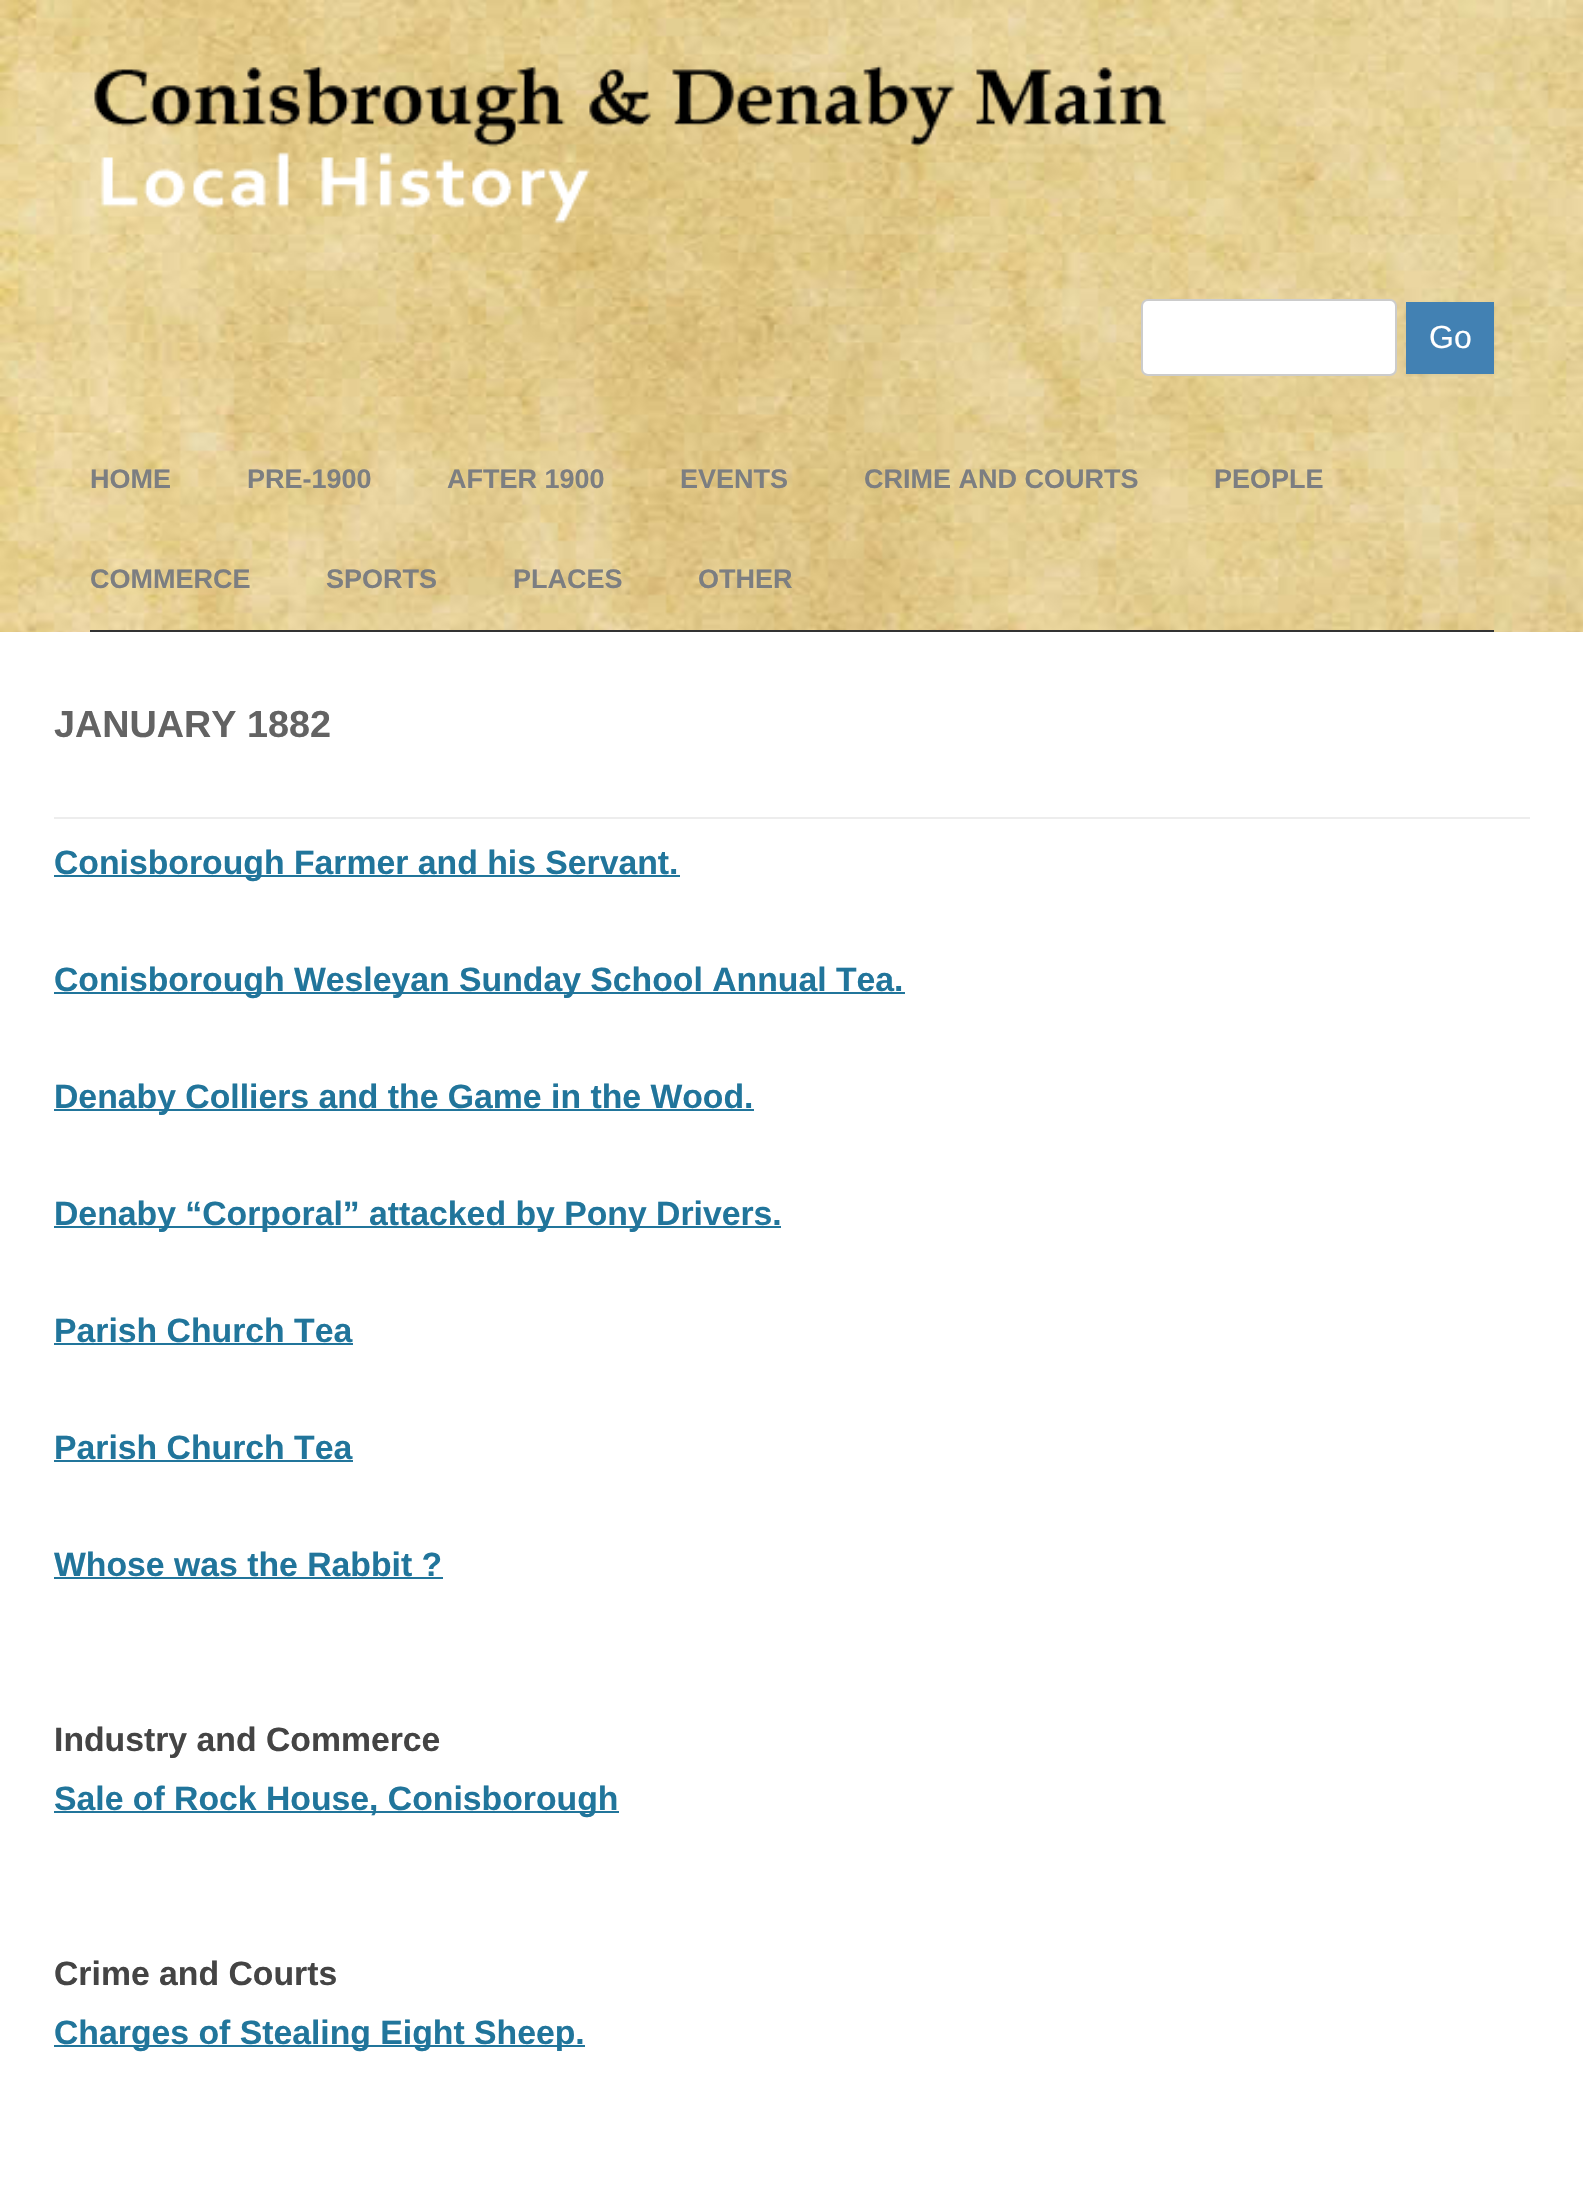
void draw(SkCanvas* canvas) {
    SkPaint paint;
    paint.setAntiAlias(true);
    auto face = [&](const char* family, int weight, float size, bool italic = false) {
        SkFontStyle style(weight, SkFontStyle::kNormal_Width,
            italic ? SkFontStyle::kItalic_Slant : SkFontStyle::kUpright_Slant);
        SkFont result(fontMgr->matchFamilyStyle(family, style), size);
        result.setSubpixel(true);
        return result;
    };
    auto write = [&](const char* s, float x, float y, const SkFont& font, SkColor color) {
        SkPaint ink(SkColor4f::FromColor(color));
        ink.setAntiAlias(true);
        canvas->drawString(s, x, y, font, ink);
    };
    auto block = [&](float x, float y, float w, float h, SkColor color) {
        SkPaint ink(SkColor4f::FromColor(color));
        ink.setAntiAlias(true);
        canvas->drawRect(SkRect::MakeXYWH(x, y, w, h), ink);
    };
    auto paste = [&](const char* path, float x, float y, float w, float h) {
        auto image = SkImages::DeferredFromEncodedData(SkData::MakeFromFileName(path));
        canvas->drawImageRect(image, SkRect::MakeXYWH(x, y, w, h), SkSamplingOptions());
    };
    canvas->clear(SK_ColorWHITE);
    paste("pic1.png", 0, 0, 1583, 632);
    paste("pic2.png", 94, 65, 1073, 159);
    paint.setColor(SK_ColorWHITE);
    canvas->drawRoundRect(SkRect::MakeXYWH(1142, 300, 254, 75), 6, 6, paint);
    paint.setStyle(SkPaint::kStroke_Style);
    paint.setStrokeWidth(2);
    paint.setColor(SkColorSetRGB(204, 204, 204));
    canvas->drawRoundRect(SkRect::MakeXYWH(1142, 300, 254, 75), 6, 6, paint);
    paint.setStyle(SkPaint::kFill_Style);
    paint.setColor(SkColorSetARGB(26, 64, 64, 64));
    paint.setMaskFilter(SkMaskFilter::MakeBlur(kNormal_SkBlurStyle, 2));
    canvas->drawRect(SkRect::MakeXYWH(1406, 304, 88, 72), paint);
    paint.setMaskFilter(nullptr);
    block(1406, 302, 88, 72, SkColorSetRGB(66, 129, 179));
    auto kFont1 = face("Liberation Sans", 400, 32);
    write("Go", 1429, 348, kFont1, SK_ColorWHITE);
    block(90, 630, 1404, 2, SkColorSetRGB(51, 51, 51));
    auto kFont2 = face("Liberation Sans", 700, 27);
    write("HOME", 90, 488, kFont2, SkColorSetRGB(124, 126, 129));
    write("PRE-1900", 247, 488, kFont2, SkColorSetRGB(124, 126, 129));
    write("AFTER 1900", 447, 488, kFont2, SkColorSetRGB(124, 126, 129));
    write("EVENTS", 680, 488, kFont2, SkColorSetRGB(124, 126, 129));
    write("CRIME AND COURTS", 864, 488, kFont2, SkColorSetRGB(124, 126, 129));
    write("PEOPLE", 1214, 488, kFont2, SkColorSetRGB(124, 126, 129));
    write("COMMERCE", 90, 588, kFont2, SkColorSetRGB(124, 126, 129));
    write("SPORTS", 326, 588, kFont2, SkColorSetRGB(124, 126, 129));
    write("PLACES", 513, 588, kFont2, SkColorSetRGB(124, 126, 129));
    write("OTHER", 698, 588, kFont2, SkColorSetRGB(124, 126, 129));
    block(54, 817, 1476, 2, SkColorSetRGB(237, 237, 237));
    auto kFont3 = face("Liberation Sans", 700, 37.75f);
    write("JANUARY 1882", 54, 737, kFont3, SkColorSetRGB(99, 99, 99));
    block(54, 875, 626, 2, SkColorSetRGB(33, 117, 155));
    auto kFont4 = face("Liberation Sans", 700, 33.75f);
    write("Conisborough Farmer and his Servant.", 54, 874, kFont4, SkColorSetRGB(33, 117, 155));
    block(54, 992, 851, 2, SkColorSetRGB(33, 117, 155));
    write("Conisborough Wesleyan Sunday School Annual Tea.", 54, 991, kFont4, SkColorSetRGB(33, 117, 155));
    block(54, 1109, 700, 2, SkColorSetRGB(33, 117, 155));
    write("Denaby Colliers and the Game in the Wood.", 54, 1108, kFont4, SkColorSetRGB(33, 117, 155));
    block(54, 1226, 727, 2, SkColorSetRGB(33, 117, 155));
    write("Denaby “Corporal” attacked by Pony Drivers.", 54, 1225, kFont4, SkColorSetRGB(33, 117, 155));
    write("Parish Church Tea", 54, 1342, kFont4, SkColorSetRGB(33, 117, 155));
    block(54, 1343, 299, 2, SkColorSetRGB(33, 117, 155));
    write("Parish Church Tea", 54, 1459, kFont4, SkColorSetRGB(33, 117, 155));
    block(54, 1460, 299, 2, SkColorSetRGB(33, 117, 155));
    write("Whose was the Rabbit ?", 54, 1576, kFont4, SkColorSetRGB(33, 117, 155));
    block(54, 1577, 389, 2, SkColorSetRGB(33, 117, 155));
    write("Industry and Commerce", 54, 1751, kFont4, SkColorSetRGB(68, 68, 68));
    block(54, 1811, 565, 2, SkColorSetRGB(33, 117, 155));
    write("Sale of Rock House, Conisborough", 54, 1810, kFont4, SkColorSetRGB(33, 117, 155));
    write("Crime and Courts", 54, 1985, kFont4, SkColorSetRGB(68, 68, 68));
    block(54, 2045, 531, 2, SkColorSetRGB(33, 117, 155));
    write("Charges of Stealing Eight Sheep.", 54, 2044, kFont4, SkColorSetRGB(33, 117, 155));
}
